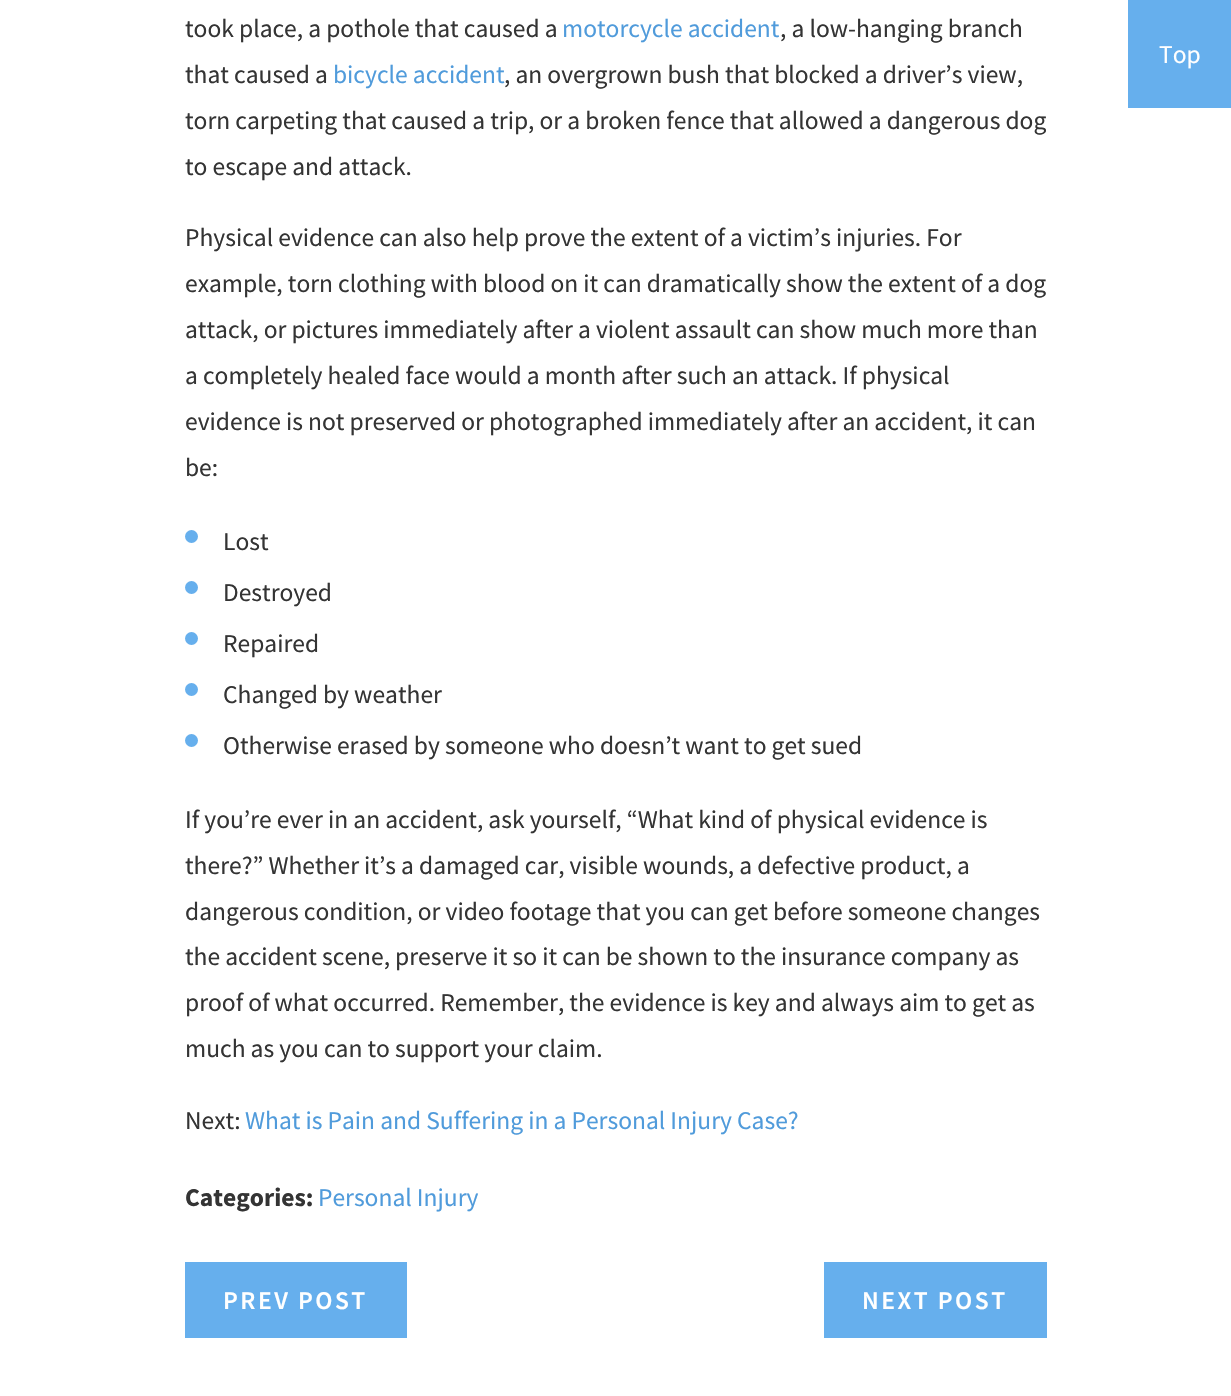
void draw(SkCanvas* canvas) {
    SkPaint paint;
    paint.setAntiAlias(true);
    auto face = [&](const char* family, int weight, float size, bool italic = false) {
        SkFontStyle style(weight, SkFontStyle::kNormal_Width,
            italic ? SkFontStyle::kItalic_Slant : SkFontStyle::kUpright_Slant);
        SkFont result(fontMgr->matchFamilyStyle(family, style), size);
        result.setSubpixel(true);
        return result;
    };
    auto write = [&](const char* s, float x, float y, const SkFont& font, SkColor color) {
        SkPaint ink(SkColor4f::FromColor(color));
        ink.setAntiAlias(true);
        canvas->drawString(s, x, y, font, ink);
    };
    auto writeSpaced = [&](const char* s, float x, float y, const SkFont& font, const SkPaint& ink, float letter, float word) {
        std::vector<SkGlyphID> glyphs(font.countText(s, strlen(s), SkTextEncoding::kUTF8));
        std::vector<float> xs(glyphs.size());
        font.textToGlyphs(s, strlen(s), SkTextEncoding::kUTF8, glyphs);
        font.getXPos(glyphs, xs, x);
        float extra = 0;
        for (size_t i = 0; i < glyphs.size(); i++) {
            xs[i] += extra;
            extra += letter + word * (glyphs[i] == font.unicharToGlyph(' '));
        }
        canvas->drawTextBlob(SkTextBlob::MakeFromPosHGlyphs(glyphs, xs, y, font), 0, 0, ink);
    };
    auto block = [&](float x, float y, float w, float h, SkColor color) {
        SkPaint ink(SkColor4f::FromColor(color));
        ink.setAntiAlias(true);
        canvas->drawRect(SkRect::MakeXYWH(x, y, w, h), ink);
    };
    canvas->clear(SK_ColorWHITE);
    auto kFont1 = face("Source Sans Pro", 400, 25.5f);
    write("took place, a pothole that caused a", 185, 37, kFont1, SkColorSetRGB(52, 52, 52));
    write("motorcycle accident", 562, 37, kFont1, SkColorSetRGB(80, 155, 219));
    write(", a low-hanging branch", 780, 37, kFont1, SkColorSetRGB(52, 52, 52));
    write("that caused a", 185, 83, kFont1, SkColorSetRGB(52, 52, 52));
    write("bicycle accident", 333, 83, kFont1, SkColorSetRGB(80, 155, 219));
    write(", an overgrown bush that blocked a driver’s view,", 504, 83, kFont1, SkColorSetRGB(52, 52, 52));
    write("torn carpeting that caused a trip, or a broken fence that allowed a dangerous dog", 185, 129, kFont1, SkColorSetRGB(52, 52, 52));
    write("to escape and attack.", 185, 175, kFont1, SkColorSetRGB(52, 52, 52));
    write("Physical evidence can also help prove the extent of a victim’s injuries. For", 185, 246, kFont1, SkColorSetRGB(52, 52, 52));
    write("example, torn clothing with blood on it can dramatically show the extent of a dog", 185, 292, kFont1, SkColorSetRGB(52, 52, 52));
    write("attack, or pictures immediately after a violent assault can show much more than", 185, 338, kFont1, SkColorSetRGB(52, 52, 52));
    write("a completely healed face would a month after such an attack. If physical", 185, 384, kFont1, SkColorSetRGB(52, 52, 52));
    write("evidence is not preserved or photographed immediately after an accident, it can", 185, 430, kFont1, SkColorSetRGB(52, 52, 52));
    write("be:", 185, 476, kFont1, SkColorSetRGB(52, 52, 52));
    paint.setColor(SkColorSetRGB(102, 175, 237));
    canvas->drawCircle(191.5f, 536.5f, 6.5f, paint);
    write("Lost", 223, 550, kFont1, SkColorSetRGB(52, 52, 52));
    canvas->drawCircle(191.5f, 587.5f, 6.5f, paint);
    write("Destroyed", 223, 601, kFont1, SkColorSetRGB(52, 52, 52));
    canvas->drawCircle(191.5f, 638.5f, 6.5f, paint);
    write("Repaired", 223, 652, kFont1, SkColorSetRGB(52, 52, 52));
    canvas->drawCircle(191.5f, 689.5f, 6.5f, paint);
    write("Changed by weather", 223, 703, kFont1, SkColorSetRGB(52, 52, 52));
    canvas->drawCircle(191.5f, 740.5f, 6.5f, paint);
    write("Otherwise erased by someone who doesn’t want to get sued", 223, 754, kFont1, SkColorSetRGB(52, 52, 52));
    write("If you’re ever in an accident, ask yourself, “What kind of physical evidence is", 185, 828, kFont1, SkColorSetRGB(52, 52, 52));
    write("there?” Whether it’s a damaged car, visible wounds, a defective product, a", 185, 874, kFont1, SkColorSetRGB(52, 52, 52));
    write("dangerous condition, or video footage that you can get before someone changes", 185, 920, kFont1, SkColorSetRGB(52, 52, 52));
    write("the accident scene, preserve it so it can be shown to the insurance company as", 185, 965, kFont1, SkColorSetRGB(52, 52, 52));
    write("proof of what occurred. Remember, the evidence is key and always aim to get as", 185, 1011, kFont1, SkColorSetRGB(52, 52, 52));
    write("much as you can to support your claim.", 185, 1057, kFont1, SkColorSetRGB(52, 52, 52));
    write("Next:", 185, 1129, kFont1, SkColorSetRGB(52, 52, 52));
    write("What is Pain and Suffering in a Personal Injury Case?", 245, 1129, kFont1, SkColorSetRGB(80, 155, 219));
    auto kFont2 = face("Source Sans Pro", 700, 25.5f);
    write("Categories:", 185, 1206, kFont2, SkColorSetRGB(52, 52, 52));
    write("Personal Injury", 318, 1206, kFont1, SkColorSetRGB(80, 155, 219));
    block(185, 1262, 222, 76, SkColorSetRGB(102, 175, 237));
    auto kFont3 = face("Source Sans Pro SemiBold", 600, 25.5f);
    paint.setColor(SK_ColorWHITE);
    writeSpaced("PREV POST", 223, 1309, kFont3, paint, 2.5f, 0);
    block(824, 1262, 223, 76, SkColorSetRGB(102, 175, 237));
    writeSpaced("NEXT POST", 862, 1309, kFont3, paint, 2.5f, 0);
    block(1128, 0, 103, 108, SkColorSetRGB(102, 175, 237));
    write("Top", 1159, 63, kFont1, SK_ColorWHITE);
}
